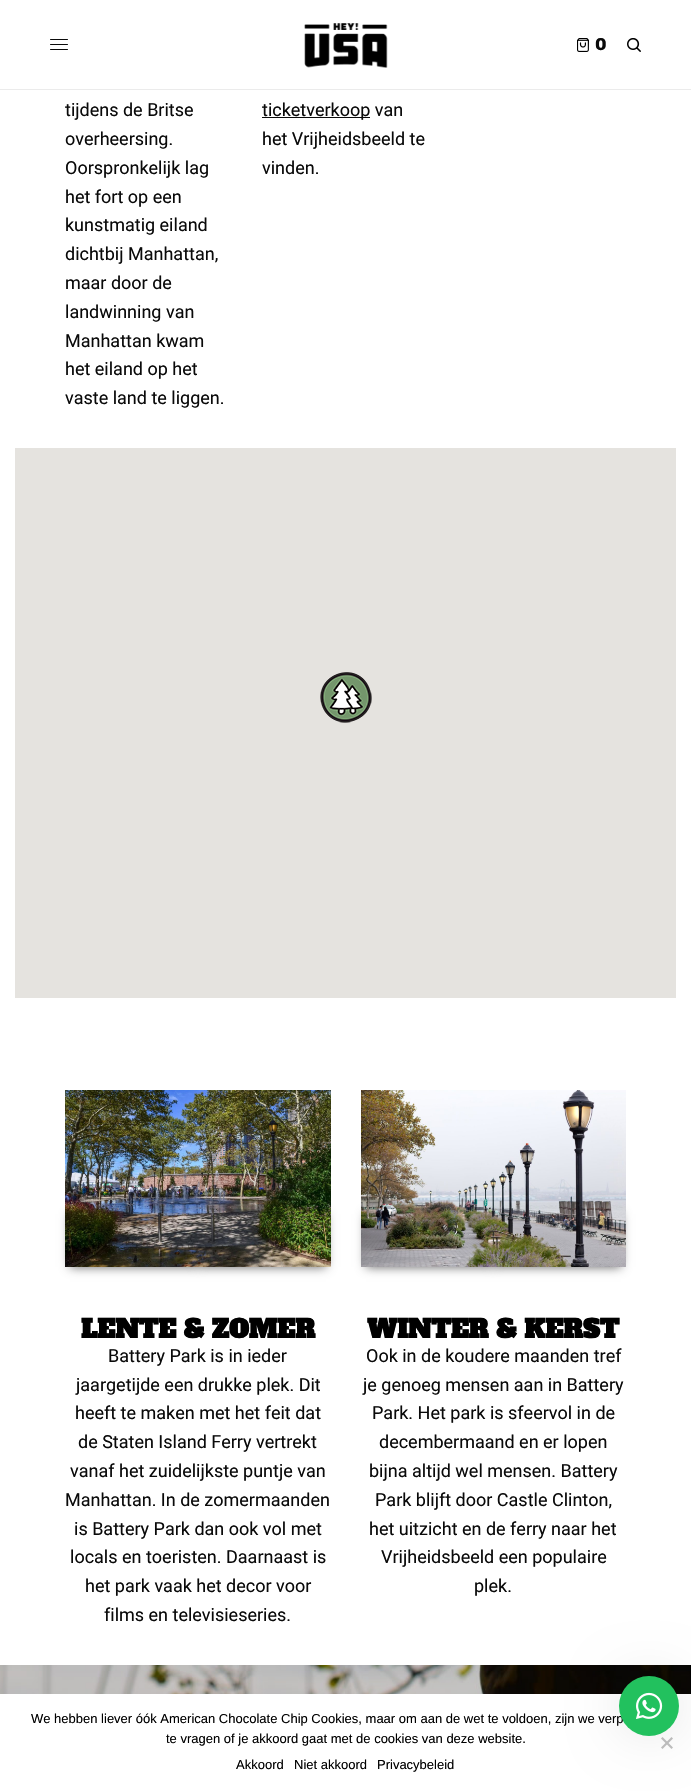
void draw(SkCanvas* canvas) {
    SkPaint paint;
    paint.setAntiAlias(true);
    auto face = [&](const char* family, int weight, float size, bool italic = false) {
        SkFontStyle style(weight, SkFontStyle::kNormal_Width,
            italic ? SkFontStyle::kItalic_Slant : SkFontStyle::kUpright_Slant);
        SkFont result(fontMgr->matchFamilyStyle(family, style), size);
        result.setSubpixel(true);
        return result;
    };
    auto write = [&](const char* s, float x, float y, const SkFont& font, SkColor color) {
        SkPaint ink(SkColor4f::FromColor(color));
        ink.setAntiAlias(true);
        canvas->drawString(s, x, y, font, ink);
    };
    auto block = [&](float x, float y, float w, float h, SkColor color) {
        SkPaint ink(SkColor4f::FromColor(color));
        ink.setAntiAlias(true);
        canvas->drawRect(SkRect::MakeXYWH(x, y, w, h), ink);
    };
    auto card = [&](float x, float y, float w, float h, float radius, SkColor color) {
        SkPaint ink(SkColor4f::FromColor(color));
        ink.setAntiAlias(true);
        canvas->drawRoundRect(SkRect::MakeXYWH(x, y, w, h), radius, radius, ink);
    };
    auto paste = [&](const char* path, float x, float y, float w, float h) {
        auto image = SkImages::DeferredFromEncodedData(SkData::MakeFromFileName(path));
        canvas->drawImageRect(image, SkRect::MakeXYWH(x, y, w, h), SkSamplingOptions());
    };
    canvas->clear(SK_ColorWHITE);
    card(50, 39, 18, 1, 0.5f, SkColorSetRGB(10, 10, 10));
    card(50, 44, 18, 1, 0.5f, SkColorSetRGB(10, 10, 10));
    card(50, 49, 18, 1, 0.5f, SkColorSetRGB(10, 10, 10));
    paste("pic1.png", 304, 23, 84, 45);
    paste("pic2.png", 577, 38, 12, 14);
    auto kFont1 = face("Rubik", 700, 17);
    write("0", 595, 50, kFont1, SkColorSetRGB(10, 10, 10));
    paste("pic3.png", 627, 38, 14, 14);
    block(0, 89, 691, 1, SkColorSetRGB(235, 235, 235));
    auto kFont2 = face("Roboto", 400, 18);
    write("tijdens de Britse", 65, 116, kFont2, SkColorSetRGB(10, 10, 10));
    write("overheersing.", 65, 145, kFont2, SkColorSetRGB(10, 10, 10));
    write("Oorspronkelijk lag", 65, 174, kFont2, SkColorSetRGB(10, 10, 10));
    write("het fort op een", 65, 203, kFont2, SkColorSetRGB(10, 10, 10));
    write("kunstmatig eiland", 65, 231, kFont2, SkColorSetRGB(10, 10, 10));
    write("dichtbij Manhattan,", 65, 260, kFont2, SkColorSetRGB(10, 10, 10));
    write("maar door de", 65, 289, kFont2, SkColorSetRGB(10, 10, 10));
    write("landwinning van", 65, 318, kFont2, SkColorSetRGB(10, 10, 10));
    write("Manhattan kwam", 65, 347, kFont2, SkColorSetRGB(10, 10, 10));
    write("het eiland op het", 65, 375, kFont2, SkColorSetRGB(10, 10, 10));
    write("vaste land te liggen.", 65, 404, kFont2, SkColorSetRGB(10, 10, 10));
    block(262, 117, 108, 1, SkColorSetRGB(10, 10, 10));
    write("ticketverkoop van", 262, 116, kFont2, SkColorSetRGB(10, 10, 10));
    write("het Vrijheidsbeeld te", 262, 145, kFont2, SkColorSetRGB(10, 10, 10));
    write("vinden.", 262, 174, kFont2, SkColorSetRGB(10, 10, 10));
    block(15, 448, 661, 550, SkColorSetRGB(229, 227, 223));
    paste("pic4.png", 320, 672, 52, 51);
    paint.setColor(SkColorSetARGB(153, 0, 0, 0));
    paint.setMaskFilter(SkMaskFilter::MakeBlur(kNormal_SkBlurStyle, 5));
    canvas->drawRect(SkRect::MakeXYWH(70, 1214, 128, 53), paint);
    paint.setMaskFilter(nullptr);
    paint.setMaskFilter(SkMaskFilter::MakeBlur(kNormal_SkBlurStyle, 5));
    canvas->drawRect(SkRect::MakeXYWH(198, 1214, 128, 53), paint);
    paint.setMaskFilter(nullptr);
    paste("pic5.png", 65, 1090, 266, 177);
    auto kFont3 = face("Alfa Slab One", 700, 25);
    write("LENTE & ZOMER", 81, 1338, kFont3, SK_ColorBLACK);
    write("Battery Park is in ieder", 108, 1362, kFont2, SkColorSetRGB(10, 10, 10));
    write("jaargetijde een drukke plek. Dit", 76, 1391, kFont2, SkColorSetRGB(10, 10, 10));
    write("heeft te maken met het feit dat", 75, 1419, kFont2, SkColorSetRGB(10, 10, 10));
    write("de Staten Island Ferry vertrekt", 78, 1448, kFont2, SkColorSetRGB(10, 10, 10));
    write("vanaf het zuidelijkste puntje van", 70, 1477, kFont2, SkColorSetRGB(10, 10, 10));
    write("Manhattan. In de zomermaanden", 65, 1506, kFont2, SkColorSetRGB(10, 10, 10));
    write("is Battery Park dan ook vol met", 74, 1535, kFont2, SkColorSetRGB(10, 10, 10));
    write("locals en toeristen. Daarnaast is", 70, 1563, kFont2, SkColorSetRGB(10, 10, 10));
    write("het park vaak het decor voor", 85, 1592, kFont2, SkColorSetRGB(10, 10, 10));
    write("films en televisieseries.", 104, 1621, kFont2, SkColorSetRGB(10, 10, 10));
    paint.setMaskFilter(SkMaskFilter::MakeBlur(kNormal_SkBlurStyle, 5));
    canvas->drawRect(SkRect::MakeXYWH(366, 1214, 127, 53), paint);
    paint.setMaskFilter(nullptr);
    paint.setMaskFilter(SkMaskFilter::MakeBlur(kNormal_SkBlurStyle, 5));
    canvas->drawRect(SkRect::MakeXYWH(493, 1214, 128, 53), paint);
    paint.setMaskFilter(nullptr);
    paste("pic6.png", 361, 1090, 265, 177);
    write("WINTER & KERST", 367, 1338, kFont3, SK_ColorBLACK);
    write("Ook in de koudere maanden tref", 366, 1362, kFont2, SkColorSetRGB(10, 10, 10));
    write("je genoeg mensen aan in Battery", 363, 1391, kFont2, SkColorSetRGB(10, 10, 10));
    write("Park. Het park is sfeervol in de", 372, 1419, kFont2, SkColorSetRGB(10, 10, 10));
    write("decembermaand en er lopen", 379, 1448, kFont2, SkColorSetRGB(10, 10, 10));
    write("bijna altijd wel mensen. Battery", 369, 1477, kFont2, SkColorSetRGB(10, 10, 10));
    write("Park blijft door Castle Clinton,", 375, 1506, kFont2, SkColorSetRGB(10, 10, 10));
    write("het uitzicht en de ferry naar het", 369, 1535, kFont2, SkColorSetRGB(10, 10, 10));
    write("Vrijheidsbeeld een populaire", 381, 1563, kFont2, SkColorSetRGB(10, 10, 10));
    write("plek.", 474, 1592, kFont2, SkColorSetRGB(10, 10, 10));
    block(0, 1665, 691, 29, SK_ColorBLACK);
    paste("pic7.png", 0, 1665, 690, 29);
    paint.setColor(SkColorSetRGB(192, 192, 192));
    canvas->drawPath(SkPathBuilder().moveTo(671.5f, 1737).lineTo(673, 1738.5f).lineTo(662.5f, 1749).lineTo(661, 1747.5f).close().detach(), paint);
    canvas->drawPath(SkPathBuilder().moveTo(661, 1738.5f).lineTo(662.5f, 1737).lineTo(673, 1747.5f).lineTo(671.5f, 1749).close().detach(), paint);
    paint.setColor(SkColorSetARGB(26, 0, 0, 0));
    paint.setMaskFilter(SkMaskFilter::MakeBlur(kNormal_SkBlurStyle, 25));
    canvas->drawRoundRect(SkRect::MakeXYWH(619, 1676, 60, 60), 30, 30, paint);
    paint.setMaskFilter(nullptr);
    auto kFont4 = face("Liberation Sans", 400, 13);
    write("We hebben liever óók American Chocolate Chip Cookies, maar om aan de wet te voldoen, zijn we verp", 31, 1723, kFont4, SK_ColorBLACK);
    paint.setColor(SkColorSetRGB(34, 193, 94));
    canvas->drawCircle(649, 1706, 30, paint);
    paste("pic8.png", 636, 1692, 27, 27);
    write("te vragen of je akkoord gaat met de cookies van deze website.", 166, 1743, kFont4, SK_ColorBLACK);
    write("Akkoord", 236, 1769, kFont4, SK_ColorBLACK);
    write("Niet akkoord", 294, 1769, kFont4, SK_ColorBLACK);
    write("Privacybeleid", 377, 1769, kFont4, SK_ColorBLACK);
}
